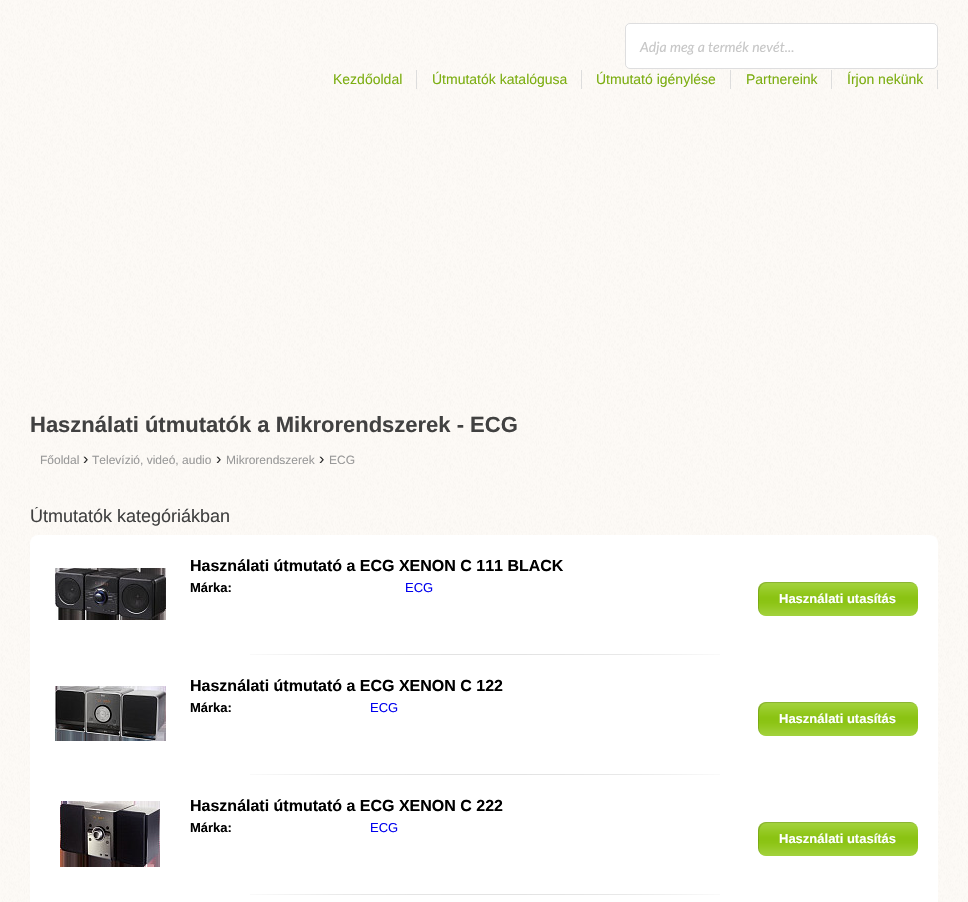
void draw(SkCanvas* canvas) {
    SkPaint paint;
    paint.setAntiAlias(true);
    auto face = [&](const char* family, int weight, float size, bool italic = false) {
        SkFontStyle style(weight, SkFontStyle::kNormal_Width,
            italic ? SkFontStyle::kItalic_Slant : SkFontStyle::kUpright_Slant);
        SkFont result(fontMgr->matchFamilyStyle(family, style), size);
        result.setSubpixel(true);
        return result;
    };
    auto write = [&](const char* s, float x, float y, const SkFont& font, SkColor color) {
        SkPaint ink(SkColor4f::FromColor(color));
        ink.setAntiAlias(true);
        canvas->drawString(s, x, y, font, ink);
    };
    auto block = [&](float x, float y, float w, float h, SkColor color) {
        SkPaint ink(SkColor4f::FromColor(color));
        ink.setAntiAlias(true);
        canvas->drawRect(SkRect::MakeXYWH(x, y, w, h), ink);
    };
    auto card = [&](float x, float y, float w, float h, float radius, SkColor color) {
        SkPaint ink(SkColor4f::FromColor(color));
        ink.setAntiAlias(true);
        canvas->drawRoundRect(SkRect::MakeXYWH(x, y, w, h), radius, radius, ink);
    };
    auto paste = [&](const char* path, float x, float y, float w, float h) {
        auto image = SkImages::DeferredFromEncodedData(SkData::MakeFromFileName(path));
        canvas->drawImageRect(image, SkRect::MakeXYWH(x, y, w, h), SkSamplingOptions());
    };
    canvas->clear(SK_ColorWHITE);
    paste("pic1.png", 0, 0, 968, 902);
    card(625, 23, 313, 46, 5, SK_ColorWHITE);
    paint.setStyle(SkPaint::kStroke_Style);
    paint.setStrokeWidth(1);
    paint.setColor(SkColorSetARGB(38, 34, 36, 38));
    canvas->drawRoundRect(SkRect::MakeXYWH(625.5f, 23.5f, 312, 45), 4.5f, 4.5f, paint);
    auto kFont1 = face("Lato", 400, 14, true);
    write("Adja meg a termék nevét...", 640, 52, kFont1, SkColorSetRGB(199, 199, 199));
    block(416, 70, 1, 19, SkColorSetRGB(221, 221, 221));
    auto kFont2 = face("Liberation Sans", 400, 14);
    write("Kezdőoldal", 333, 84, kFont2, SkColorSetRGB(124, 174, 17));
    block(581, 70, 1, 19, SkColorSetRGB(221, 221, 221));
    write("Útmutatók katalógusa", 432, 84, kFont2, SkColorSetRGB(124, 174, 17));
    block(730, 70, 1, 19, SkColorSetRGB(221, 221, 221));
    write("Útmutató igénylése", 596, 84, kFont2, SkColorSetRGB(124, 174, 17));
    block(831, 70, 1, 19, SkColorSetRGB(221, 221, 221));
    write("Partnereink", 746, 84, kFont2, SkColorSetRGB(124, 174, 17));
    block(937, 70, 1, 19, SkColorSetRGB(221, 221, 221));
    write("Írjon nekünk", 847, 84, kFont2, SkColorSetRGB(124, 174, 17));
    auto kFont3 = face("Liberation Sans", 700, 22);
    write("Használati útmutatók a Mikrorendszerek - ECG", 30, 432, kFont3, SkColorSetRGB(65, 65, 65));
    auto kFont4 = face("Liberation Sans", 400, 12);
    write("Főoldal", 40, 464, kFont4, SkColorSetRGB(153, 153, 153));
    auto kFont5 = face("Liberation Sans", 400, 16);
    write("›", 83, 464, kFont5, SkColorSetRGB(47, 47, 47));
    write("Televízió, videó, audio", 92, 464, kFont4, SkColorSetRGB(153, 153, 153));
    write("›", 216, 464, kFont5, SkColorSetRGB(47, 47, 47));
    write("Mikrorendszerek", 226, 464, kFont4, SkColorSetRGB(153, 153, 153));
    write("›", 319, 464, kFont5, SkColorSetRGB(47, 47, 47));
    write("ECG", 329, 464, kFont4, SkColorSetRGB(153, 153, 153));
    canvas->save();
    canvas->clipRect(SkRect::MakeXYWH(30, 507, 908, 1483));
    auto kFont6 = face("Liberation Sans", 400, 18);
    write("Útmutatók kategóriákban", 30, 522, kFont6, SkColorSetRGB(65, 65, 65));
    canvas->restore();
    card(30, 535, 908, 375, 8, SK_ColorWHITE);
    paste("pic2.png", 250, 654, 470, 1);
    paste("pic3.png", 55, 568, 111, 52);
    auto kFont7 = face("Liberation Sans", 700, 16);
    write("Használati útmutató a ECG XENON C 111 BLACK", 190, 571, kFont7, SK_ColorBLACK);
    auto kFont8 = face("Liberation Sans", 700, 13);
    write("Márka:", 190, 592, kFont8, SK_ColorBLACK);
    auto kFont9 = face("Liberation Sans", 400, 13);
    write("ECG", 405, 592, kFont9, SkColorSetRGB(0, 0, 238));
    paste("pic4.png", 758, 582, 160, 34);
    paint.setStyle(SkPaint::kFill_Style);
    paint.setColor(SkColorSetARGB(36, 0, 0, 0));
    canvas->drawPath(SkPathBuilder().moveTo(767, 583).lineTo(911, 583).cubicTo(913, 583, 915, 584, 917, 586).cubicTo(915, 584, 913, 582, 910, 582).lineTo(766, 582).cubicTo(762, 582, 758, 586, 758, 590).lineTo(758, 608).cubicTo(758, 611, 760, 613, 762, 615).cubicTo(758, 611, 759, 605, 759, 600).cubicTo(759, 594, 758, 583, 767, 583).close().detach(), paint);
    write("Használati utasítás", 779, 603, kFont8, SK_ColorWHITE);
    paste("pic2.png", 250, 774, 470, 1);
    paste("pic5.png", 55, 686, 111, 55);
    write("Használati útmutató a ECG XENON C 122", 190, 691, kFont7, SK_ColorBLACK);
    write("Márka:", 190, 712, kFont8, SK_ColorBLACK);
    write("ECG", 370, 712, kFont9, SkColorSetRGB(0, 0, 238));
    paste("pic4.png", 758, 702, 160, 34);
    canvas->drawPath(SkPathBuilder().moveTo(767, 703).lineTo(911, 703).cubicTo(913, 703, 915, 704, 917, 706).cubicTo(915, 704, 913, 702, 910, 702).lineTo(766, 702).cubicTo(762, 702, 758, 706, 758, 710).lineTo(758, 728).cubicTo(758, 731, 760, 733, 762, 735).cubicTo(758, 731, 759, 725, 759, 720).cubicTo(759, 714, 758, 703, 767, 703).close().detach(), paint);
    write("Használati utasítás", 779, 723, kFont8, SK_ColorWHITE);
    paste("pic2.png", 250, 894, 470, 1);
    paste("pic6.png", 60, 801, 100, 66);
    write("Használati útmutató a ECG XENON C 222", 190, 811, kFont7, SK_ColorBLACK);
    write("Márka:", 190, 832, kFont8, SK_ColorBLACK);
    write("ECG", 370, 832, kFont9, SkColorSetRGB(0, 0, 238));
    paste("pic4.png", 758, 822, 160, 34);
    canvas->drawPath(SkPathBuilder().moveTo(767, 823).lineTo(911, 823).cubicTo(913, 823, 915, 824, 917, 826).cubicTo(915, 824, 913, 822, 910, 822).lineTo(766, 822).cubicTo(762, 822, 758, 826, 758, 830).lineTo(758, 848).cubicTo(758, 851, 760, 853, 762, 855).cubicTo(758, 851, 759, 845, 759, 840).cubicTo(759, 834, 758, 823, 767, 823).close().detach(), paint);
    write("Használati utasítás", 779, 843, kFont8, SK_ColorWHITE);
}
